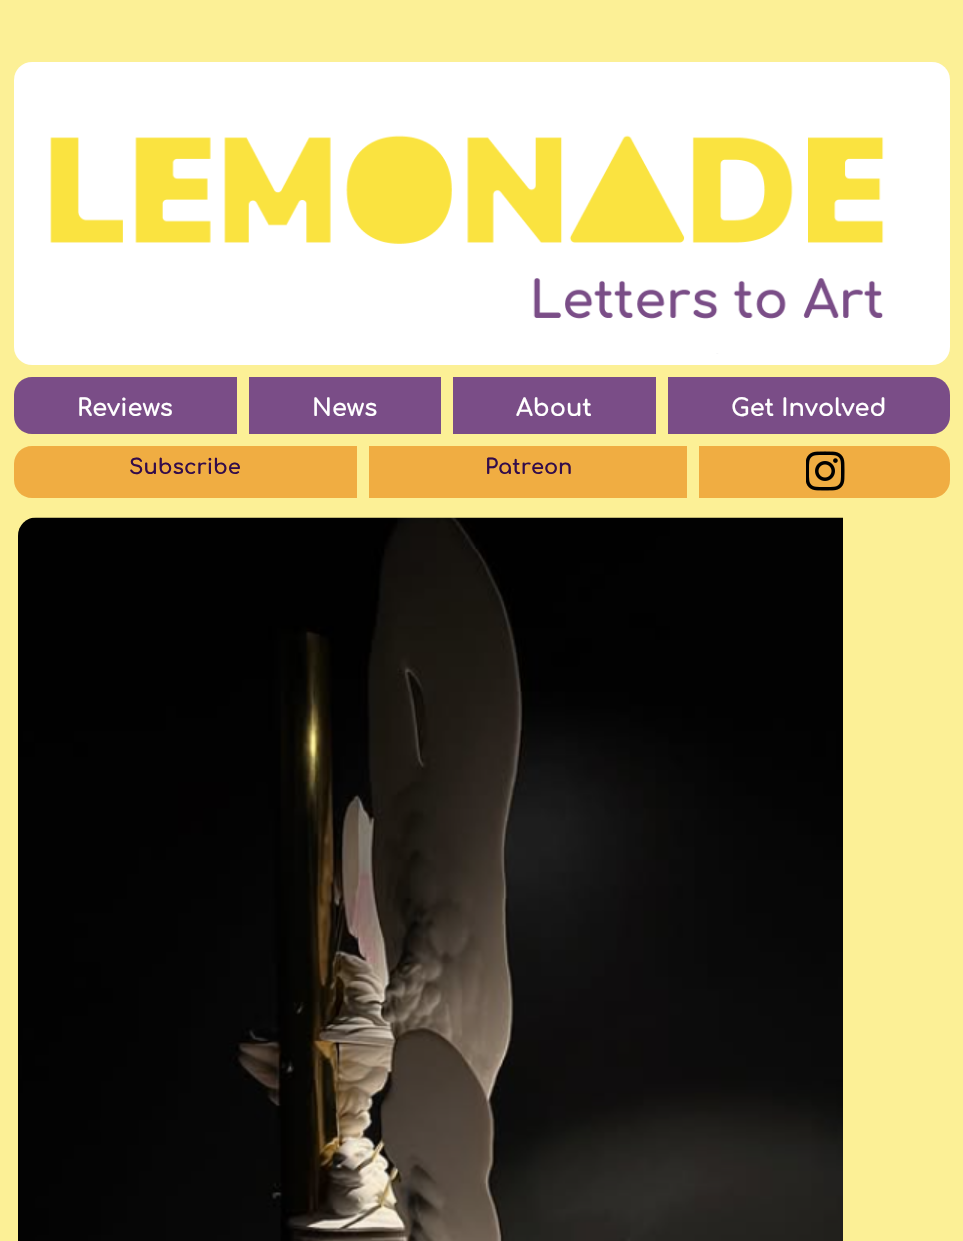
void draw(SkCanvas* canvas) {
    SkPaint paint;
    paint.setAntiAlias(true);
    auto face = [&](const char* family, int weight, float size, bool italic = false) {
        SkFontStyle style(weight, SkFontStyle::kNormal_Width,
            italic ? SkFontStyle::kItalic_Slant : SkFontStyle::kUpright_Slant);
        SkFont result(fontMgr->matchFamilyStyle(family, style), size);
        result.setSubpixel(true);
        return result;
    };
    auto write = [&](const char* s, float x, float y, const SkFont& font, SkColor color) {
        SkPaint ink(SkColor4f::FromColor(color));
        ink.setAntiAlias(true);
        canvas->drawString(s, x, y, font, ink);
    };
    auto block = [&](float x, float y, float w, float h, SkColor color) {
        SkPaint ink(SkColor4f::FromColor(color));
        ink.setAntiAlias(true);
        canvas->drawRect(SkRect::MakeXYWH(x, y, w, h), ink);
    };
    auto card = [&](float x, float y, float w, float h, float radius, SkColor color) {
        SkPaint ink(SkColor4f::FromColor(color));
        ink.setAntiAlias(true);
        canvas->drawRoundRect(SkRect::MakeXYWH(x, y, w, h), radius, radius, ink);
    };
    auto paste = [&](const char* path, float x, float y, float w, float h) {
        auto image = SkImages::DeferredFromEncodedData(SkData::MakeFromFileName(path));
        canvas->drawImageRect(image, SkRect::MakeXYWH(x, y, w, h), SkSamplingOptions());
    };
    canvas->clear(SkColorSetRGB(252, 240, 150));
    card(14, 62, 936, 303, 18, SK_ColorWHITE);
    paste("pic1.png", 50, 135, 834, 219);
    paint.setColor(SkColorSetRGB(122, 77, 135));
    canvas->drawPath(SkPathBuilder().moveTo(32, 377).lineTo(237, 377).lineTo(237, 434).lineTo(32, 434).cubicTo(22, 434, 14, 426, 14, 416).lineTo(14, 395).cubicTo(14, 385, 22, 377, 32, 377).close().detach(), paint);
    auto kFont1 = face("Comfortaa", 700, 24);
    write("Reviews", 77, 416, kFont1, SK_ColorWHITE);
    block(249, 377, 192, 57, SkColorSetRGB(122, 77, 135));
    write("News", 312, 416, kFont1, SK_ColorWHITE);
    block(453, 377, 203, 57, SkColorSetRGB(122, 77, 135));
    write("About", 516, 416, kFont1, SK_ColorWHITE);
    canvas->drawPath(SkPathBuilder().moveTo(668, 377).lineTo(932, 377).cubicTo(942, 377, 950, 385, 950, 395).lineTo(950, 416).cubicTo(950, 426, 942, 434, 932, 434).lineTo(668, 434).close().detach(), paint);
    write("Get Involved", 731, 416, kFont1, SK_ColorWHITE);
    paint.setColor(SkColorSetRGB(240, 173, 66));
    canvas->drawPath(SkPathBuilder().moveTo(32, 446).lineTo(357, 446).lineTo(357, 498).lineTo(32, 498).cubicTo(22, 498, 14, 490, 14, 480).lineTo(14, 464).cubicTo(14, 454, 22, 446, 32, 446).close().detach(), paint);
    auto kFont2 = face("Comfortaa", 700, 21);
    write("Subscribe", 129, 474, kFont2, SkColorSetRGB(51, 12, 74));
    block(369, 446, 318, 52, SkColorSetRGB(240, 173, 66));
    write("Patreon", 485, 474, kFont2, SkColorSetRGB(51, 12, 74));
    canvas->drawPath(SkPathBuilder().moveTo(699, 446).lineTo(932, 446).cubicTo(942, 446, 950, 454, 950, 464).lineTo(950, 480).cubicTo(950, 490, 942, 498, 932, 498).lineTo(699, 498).close().detach(), paint);
    paste("pic2.png", 806, 451, 39, 40);
    paste("pic3.png", 18, 517, 825, 724);
}
